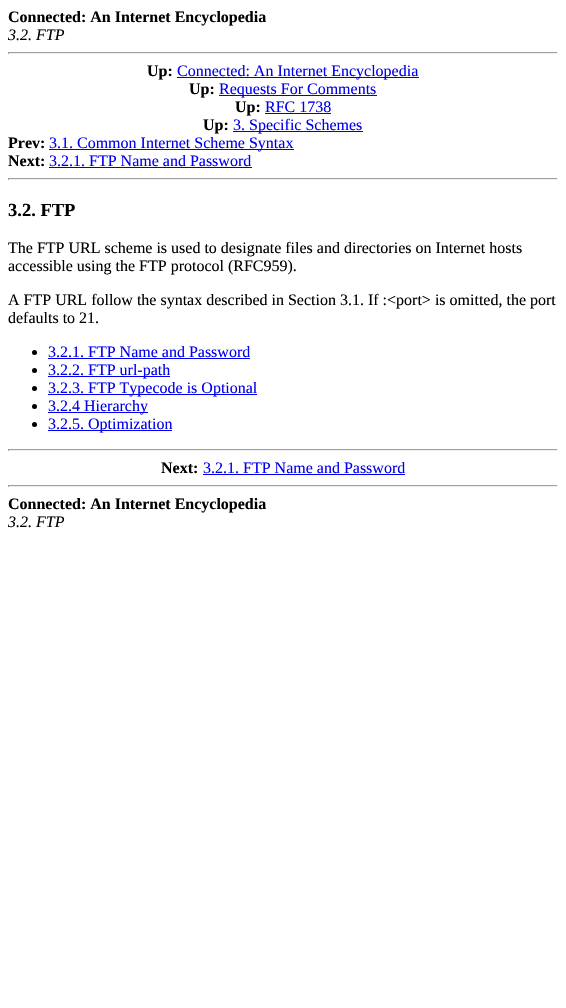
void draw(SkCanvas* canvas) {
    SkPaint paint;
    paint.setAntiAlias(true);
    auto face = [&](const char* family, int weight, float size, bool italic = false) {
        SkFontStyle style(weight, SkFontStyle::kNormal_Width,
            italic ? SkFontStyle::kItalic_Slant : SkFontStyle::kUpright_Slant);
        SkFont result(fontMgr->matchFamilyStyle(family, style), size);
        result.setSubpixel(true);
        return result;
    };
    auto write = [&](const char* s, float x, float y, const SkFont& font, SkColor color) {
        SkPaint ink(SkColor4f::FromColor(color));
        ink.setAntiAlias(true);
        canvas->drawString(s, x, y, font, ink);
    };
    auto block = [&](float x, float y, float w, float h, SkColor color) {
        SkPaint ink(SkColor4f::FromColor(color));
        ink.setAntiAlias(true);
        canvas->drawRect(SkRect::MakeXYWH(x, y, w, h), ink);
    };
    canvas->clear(SK_ColorWHITE);
    auto kFont1 = face("Liberation Serif", 700, 16);
    write("Connected: An Internet Encyclopedia", 8, 22, kFont1, SK_ColorBLACK);
    auto kFont2 = face("Liberation Serif", 400, 16, true);
    write("3.2. FTP", 8, 40, kFont2, SK_ColorBLACK);
    block(8, 52, 550, 1, SkColorSetRGB(159, 159, 159));
    block(557, 52, 1, 2, SkColorSetRGB(238, 238, 238));
    block(8, 53, 550, 1, SkColorSetRGB(238, 238, 238));
    block(8, 52, 1, 2, SkColorSetRGB(159, 159, 159));
    write("Up:", 147, 76, kFont1, SK_ColorBLACK);
    block(177, 77, 242, 1, SkColorSetRGB(0, 0, 238));
    auto kFont3 = face("Liberation Serif", 400, 16);
    write("Connected: An Internet Encyclopedia", 177, 76, kFont3, SkColorSetRGB(0, 0, 238));
    write("Up:", 189, 94, kFont1, SK_ColorBLACK);
    block(219, 95, 158, 1, SkColorSetRGB(0, 0, 238));
    write("Requests For Comments", 219, 94, kFont3, SkColorSetRGB(0, 0, 238));
    write("Up:", 235, 112, kFont1, SK_ColorBLACK);
    write("RFC 1738", 265, 112, kFont3, SkColorSetRGB(0, 0, 238));
    block(265, 113, 66, 1, SkColorSetRGB(0, 0, 238));
    write("Up:", 203, 130, kFont1, SK_ColorBLACK);
    block(233, 131, 130, 1, SkColorSetRGB(0, 0, 238));
    write("3. Specific Schemes", 233, 130, kFont3, SkColorSetRGB(0, 0, 238));
    write("Prev:", 8, 148, kFont1, SK_ColorBLACK);
    block(49, 149, 245, 1, SkColorSetRGB(0, 0, 238));
    write("3.1. Common Internet Scheme Syntax", 49, 148, kFont3, SkColorSetRGB(0, 0, 238));
    write("Next:", 8, 166, kFont1, SK_ColorBLACK);
    write("3.2.1. FTP Name and Password", 49, 166, kFont3, SkColorSetRGB(0, 0, 238));
    block(49, 167, 203, 1, SkColorSetRGB(0, 0, 238));
    block(8, 178, 550, 1, SkColorSetRGB(159, 159, 159));
    block(557, 178, 1, 2, SkColorSetRGB(238, 238, 238));
    block(8, 179, 550, 1, SkColorSetRGB(238, 238, 238));
    block(8, 178, 1, 2, SkColorSetRGB(159, 159, 159));
    auto kFont4 = face("Liberation Serif", 700, 18.5f);
    write("3.2. FTP", 8, 216, kFont4, SK_ColorBLACK);
    write("The FTP URL scheme is used to designate files and directories on Internet hosts", 8, 253, kFont3, SK_ColorBLACK);
    write("accessible using the FTP protocol (RFC959).", 8, 271, kFont3, SK_ColorBLACK);
    write("A FTP URL follow the syntax described in Section 3.1. If :<port> is omitted, the port", 8, 305, kFont3, SK_ColorBLACK);
    write("defaults to 21.", 8, 323, kFont3, SK_ColorBLACK);
    paint.setColor(SK_ColorBLACK);
    canvas->drawCircle(34.5f, 352.5f, 2.5f, paint);
    write("3.2.1. FTP Name and Password", 48, 357, kFont3, SkColorSetRGB(0, 0, 238));
    block(48, 358, 202, 1, SkColorSetRGB(0, 0, 238));
    canvas->drawCircle(34.5f, 370.5f, 2.5f, paint);
    block(48, 376, 122, 1, SkColorSetRGB(0, 0, 238));
    write("3.2.2. FTP url-path", 48, 375, kFont3, SkColorSetRGB(0, 0, 238));
    canvas->drawCircle(34.5f, 388.5f, 2.5f, paint);
    block(48, 394, 209, 1, SkColorSetRGB(0, 0, 238));
    write("3.2.3. FTP Typecode is Optional", 48, 393, kFont3, SkColorSetRGB(0, 0, 238));
    canvas->drawCircle(34.5f, 406.5f, 2.5f, paint);
    block(48, 412, 100, 1, SkColorSetRGB(0, 0, 238));
    write("3.2.4 Hierarchy", 48, 411, kFont3, SkColorSetRGB(0, 0, 238));
    canvas->drawCircle(34.5f, 424.5f, 2.5f, paint);
    block(48, 430, 124, 1, SkColorSetRGB(0, 0, 238));
    write("3.2.5. Optimization", 48, 429, kFont3, SkColorSetRGB(0, 0, 238));
    block(8, 449, 550, 1, SkColorSetRGB(159, 159, 159));
    block(557, 449, 1, 2, SkColorSetRGB(238, 238, 238));
    block(8, 450, 550, 1, SkColorSetRGB(238, 238, 238));
    block(8, 449, 1, 2, SkColorSetRGB(159, 159, 159));
    write("Next:", 161, 473, kFont1, SK_ColorBLACK);
    write("3.2.1. FTP Name and Password", 203, 473, kFont3, SkColorSetRGB(0, 0, 238));
    block(203, 474, 202, 1, SkColorSetRGB(0, 0, 238));
    block(8, 485, 550, 1, SkColorSetRGB(159, 159, 159));
    block(557, 485, 1, 2, SkColorSetRGB(238, 238, 238));
    block(8, 486, 550, 1, SkColorSetRGB(238, 238, 238));
    block(8, 485, 1, 2, SkColorSetRGB(159, 159, 159));
    write("Connected: An Internet Encyclopedia", 8, 509, kFont1, SK_ColorBLACK);
    write("3.2. FTP", 8, 527, kFont2, SK_ColorBLACK);
}
